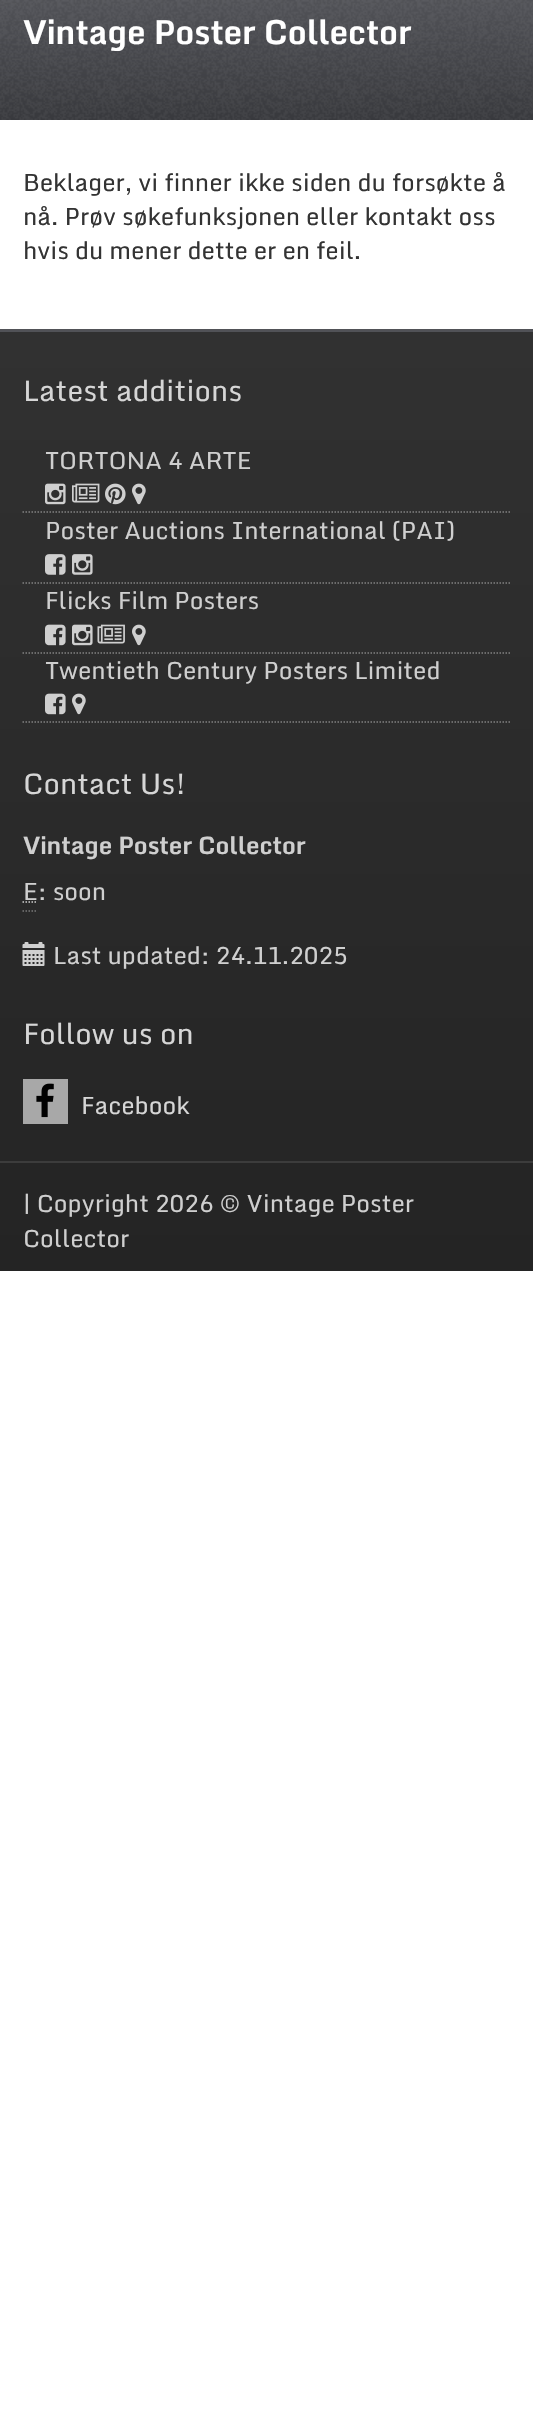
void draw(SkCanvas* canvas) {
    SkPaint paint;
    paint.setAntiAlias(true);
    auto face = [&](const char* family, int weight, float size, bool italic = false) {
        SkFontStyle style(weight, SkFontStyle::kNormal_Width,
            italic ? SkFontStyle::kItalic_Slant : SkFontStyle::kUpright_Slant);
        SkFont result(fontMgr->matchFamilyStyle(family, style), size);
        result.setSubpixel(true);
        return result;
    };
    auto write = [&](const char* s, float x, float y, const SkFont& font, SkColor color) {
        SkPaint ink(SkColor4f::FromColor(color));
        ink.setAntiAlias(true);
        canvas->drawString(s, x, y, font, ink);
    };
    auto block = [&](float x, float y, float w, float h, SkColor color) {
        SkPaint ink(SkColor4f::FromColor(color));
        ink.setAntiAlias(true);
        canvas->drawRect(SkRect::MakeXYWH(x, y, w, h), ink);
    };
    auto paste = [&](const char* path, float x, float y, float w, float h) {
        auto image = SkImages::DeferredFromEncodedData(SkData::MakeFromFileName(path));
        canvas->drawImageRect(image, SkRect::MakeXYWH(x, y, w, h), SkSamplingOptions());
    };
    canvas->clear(SK_ColorWHITE);
    {
        const SkColor colors[] = {SkColorSetRGB(81, 82, 87), SkColorSetRGB(56, 57, 61)};
        const float stops[] = {0, 1};
        const SkPoint ends[] = {{267, 0}, {267, 120}};
        paint.setShader(SkGradientShader::MakeLinear(ends, colors, stops, 2, SkTileMode::kClamp));
        paint.setAlpha(255);
    }
    canvas->drawRect(SkRect::MakeXYWH(0, 0, 533, 120), paint);
    paste("pic1.png", 0, 0, 533, 120);
    auto kFont1 = face("Monda", 700, 33);
    write("Vintage Poster Collector", 23, 44, kFont1, SK_ColorWHITE);
    auto kFont2 = face("Monda", 400, 24);
    write("Beklager, vi finner ikke siden du forsøkte å", 23, 191, kFont2, SkColorSetRGB(51, 51, 51));
    write("nå. Prøv søkefunksjonen eller kontakt oss", 23, 225, kFont2, SkColorSetRGB(51, 51, 51));
    write("hvis du mener dette er en feil.", 23, 259, kFont2, SkColorSetRGB(51, 51, 51));
    {
        const SkColor colors[] = {SkColorSetRGB(49, 49, 49), SkColorSetRGB(36, 36, 36)};
        const float stops[] = {0, 1};
        const SkPoint ends[] = {{267, 332}, {267, 1271}};
        paint.setShader(SkGradientShader::MakeLinear(ends, colors, stops, 2, SkTileMode::kClamp));
        paint.setAlpha(255);
    }
    canvas->drawRect(SkRect::MakeXYWH(0, 332, 533, 939), paint);
    block(0, 329, 533, 3, SkColorSetRGB(81, 82, 87));
    auto kFont3 = face("Monda", 400, 28.75f);
    write("Latest additions", 23, 401, kFont3, SkColorSetRGB(214, 214, 214));
    write("TORTONA 4 ARTE", 45, 469, kFont2, SkColorSetRGB(207, 207, 207));
    paint.setStyle(SkPaint::kStroke_Style);
    paint.setStrokeWidth(1.5f);
    paint.setShader(nullptr);
    paint.setColor(SkColorSetRGB(128, 128, 128));
    paint.setPathEffect(SkDashPathEffect::Make({{1.5f, 1.5f}}, 0));
    canvas->drawPath(SkPathBuilder().moveTo(22.5f, 512).lineTo(511.5f, 512).detach(), paint);
    paint.setPathEffect(nullptr);
    paste("pic2.png", 45, 483, 21, 22);
    paste("pic3.png", 72, 483, 28, 20);
    paste("pic4.png", 105, 483, 21, 22);
    paste("pic5.png", 132, 483, 14, 22);
    write("Poster Auctions International (PAI)", 45, 539, kFont2, SkColorSetRGB(207, 207, 207));
    paint.setPathEffect(SkDashPathEffect::Make({{1.5f, 1.5f}}, 0));
    canvas->drawPath(SkPathBuilder().moveTo(22.5f, 583).lineTo(511.5f, 583).detach(), paint);
    paint.setPathEffect(nullptr);
    paste("pic6.png", 45, 554, 21, 21);
    paste("pic7.png", 72, 554, 21, 21);
    write("Flicks Film Posters", 45, 609, kFont2, SkColorSetRGB(207, 207, 207));
    paint.setPathEffect(SkDashPathEffect::Make({{1.5f, 1.5f}}, 0));
    canvas->drawPath(SkPathBuilder().moveTo(22.5f, 653).lineTo(511.5f, 653).detach(), paint);
    paint.setPathEffect(nullptr);
    paste("pic8.png", 45, 624, 21, 22);
    paste("pic9.png", 72, 624, 21, 22);
    paste("pic10.png", 97, 624, 28, 20);
    paste("pic11.png", 132, 624, 14, 22);
    write("Twentieth Century Posters Limited", 45, 679, kFont2, SkColorSetRGB(207, 207, 207));
    paint.setPathEffect(SkDashPathEffect::Make({{1.5f, 1.5f}}, 0));
    canvas->drawPath(SkPathBuilder().moveTo(22.5f, 722).lineTo(511.5f, 722).detach(), paint);
    paint.setPathEffect(nullptr);
    paste("pic12.png", 45, 693, 21, 22);
    paste("pic13.png", 72, 693, 14, 22);
    write("Contact Us!", 23, 794, kFont3, SkColorSetRGB(214, 214, 214));
    auto kFont4 = face("Monda", 700, 24);
    write("Vintage Poster Collector", 23, 854, kFont4, SkColorSetRGB(207, 207, 207));
    write("E: soon", 23, 900, kFont2, SkColorSetRGB(207, 207, 207));
    paint.setColor(SkColorSetRGB(119, 119, 119));
    paint.setPathEffect(SkDashPathEffect::Make({{1.5f, 1.5f}}, 0));
    canvas->drawPath(SkPathBuilder().moveTo(22.5f, 911).lineTo(37.5f, 911).detach(), paint);
    paint.setPathEffect(nullptr);
    paint.setColor(SkColorSetRGB(207, 207, 207));
    paint.setPathEffect(SkDashPathEffect::Make({{1.5f, 1.5f}}, 0));
    canvas->drawPath(SkPathBuilder().moveTo(22.5f, 902).lineTo(37, 902).detach(), paint);
    paint.setPathEffect(nullptr);
    paste("pic14.png", 22, 942, 23, 24);
    write("Last updated: 24.11.2025", 53, 964, kFont2, SkColorSetRGB(207, 207, 207));
    write("Follow us on", 23, 1044, kFont3, SkColorSetRGB(214, 214, 214));
    block(23, 1079, 45, 45, SkColorSetRGB(168, 168, 168));
    paste("pic15.png", 36, 1083, 18, 35);
    write("Facebook", 81, 1114, kFont2, SkColorSetRGB(214, 214, 214));
    block(0, 1161, 533, 2, SkColorSetRGB(60, 60, 60));
    write("| Copyright 2026 © Vintage Poster", 23, 1212, kFont2, SkColorSetRGB(207, 207, 207));
    write("Collector", 23, 1247, kFont2, SkColorSetRGB(207, 207, 207));
}
